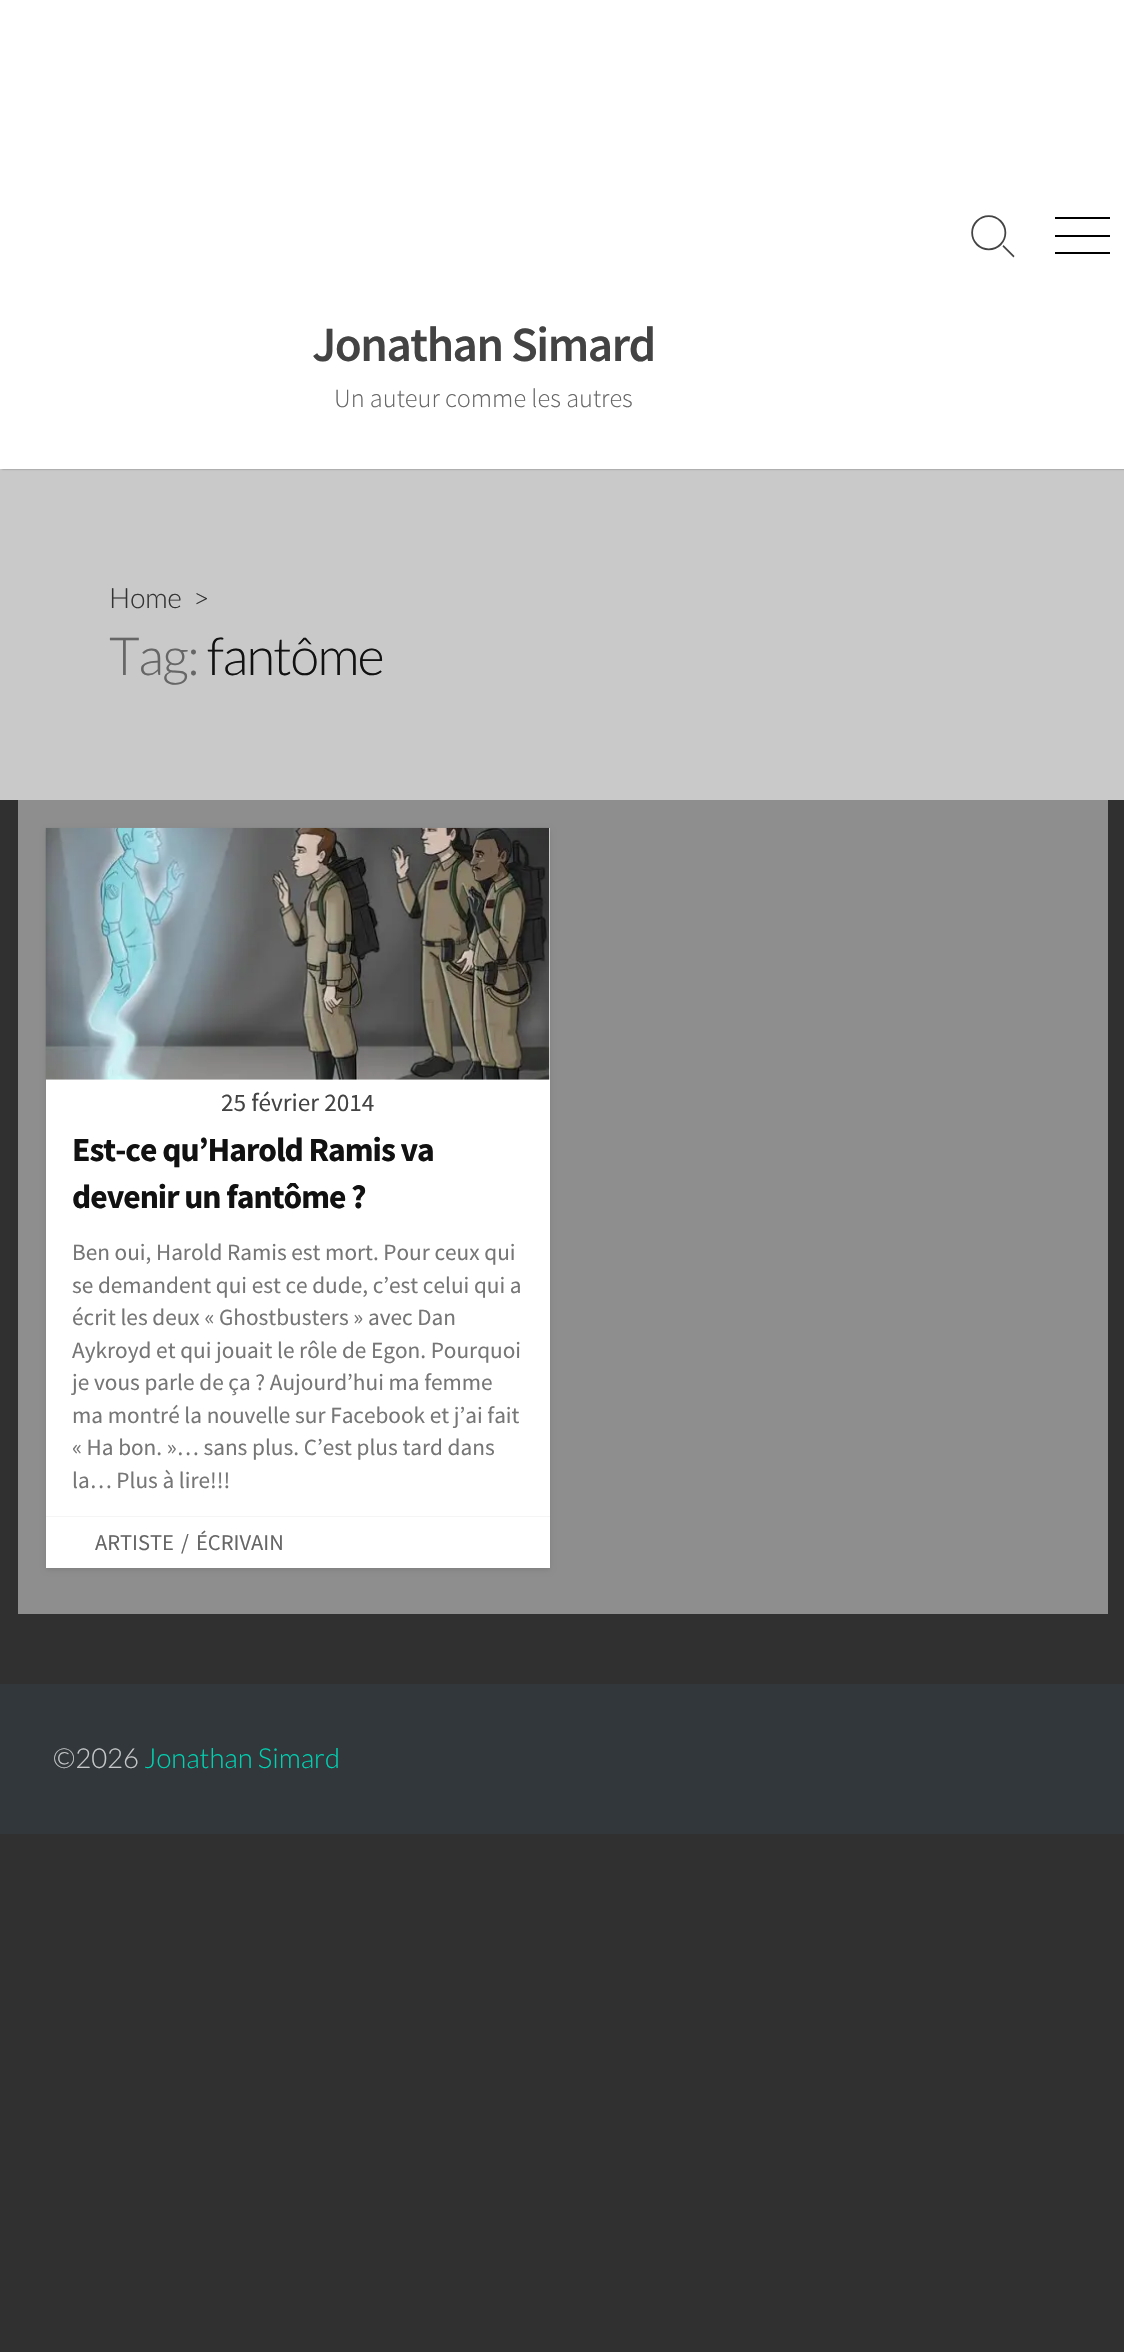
void draw(SkCanvas* canvas) {
    SkPaint paint;
    paint.setAntiAlias(true);
    auto face = [&](const char* family, int weight, float size, bool italic = false) {
        SkFontStyle style(weight, SkFontStyle::kNormal_Width,
            italic ? SkFontStyle::kItalic_Slant : SkFontStyle::kUpright_Slant);
        SkFont result(fontMgr->matchFamilyStyle(family, style), size);
        result.setSubpixel(true);
        return result;
    };
    auto write = [&](const char* s, float x, float y, const SkFont& font, SkColor color) {
        SkPaint ink(SkColor4f::FromColor(color));
        ink.setAntiAlias(true);
        canvas->drawString(s, x, y, font, ink);
    };
    auto writeSpaced = [&](const char* s, float x, float y, const SkFont& font, const SkPaint& ink, float letter, float word) {
        std::vector<SkGlyphID> glyphs(font.countText(s, strlen(s), SkTextEncoding::kUTF8));
        std::vector<float> xs(glyphs.size());
        font.textToGlyphs(s, strlen(s), SkTextEncoding::kUTF8, glyphs);
        font.getXPos(glyphs, xs, x);
        float extra = 0;
        for (size_t i = 0; i < glyphs.size(); i++) {
            xs[i] += extra;
            extra += letter + word * (glyphs[i] == font.unicharToGlyph(' '));
        }
        canvas->drawTextBlob(SkTextBlob::MakeFromPosHGlyphs(glyphs, xs, y, font), 0, 0, ink);
    };
    auto block = [&](float x, float y, float w, float h, SkColor color) {
        SkPaint ink(SkColor4f::FromColor(color));
        ink.setAntiAlias(true);
        canvas->drawRect(SkRect::MakeXYWH(x, y, w, h), ink);
    };
    auto paste = [&](const char* path, float x, float y, float w, float h) {
        auto image = SkImages::DeferredFromEncodedData(SkData::MakeFromFileName(path));
        canvas->drawImageRect(image, SkRect::MakeXYWH(x, y, w, h), SkSamplingOptions());
    };
    canvas->clear(SkColorSetRGB(48, 48, 48));
    block(0, 469, 1124, 331, SkColorSetRGB(201, 201, 201));
    paint.setColor(SkColorSetARGB(102, 0, 0, 0));
    paint.setMaskFilter(SkMaskFilter::MakeBlur(kNormal_SkBlurStyle, 1));
    canvas->drawRect(SkRect::MakeXYWH(2, 0, 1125, 469), paint);
    paint.setMaskFilter(nullptr);
    block(0, 0, 1124, 469, SK_ColorWHITE);
    paint.setStyle(SkPaint::kStroke_Style);
    paint.setStrokeWidth(1.8f);
    paint.setColor(SkColorSetRGB(68, 68, 68));
    canvas->drawPath(SkPathBuilder().moveTo(977, 221).cubicTo(983.5f, 214.5f, 994, 214.5f, 1000.5f, 221).cubicTo(1007, 227.5f, 1007, 238, 1000.5f, 244.5f).cubicTo(994, 251, 983.5f, 251, 977, 244.5f).cubicTo(970.5f, 238, 970.5f, 227.5f, 977, 221).close().detach(), paint);
    paint.setStyle(SkPaint::kFill_Style);
    canvas->drawPath(SkPathBuilder().moveTo(1002.5f, 246.5f).lineTo(1003.5f, 245).lineTo(1014.5f, 256).lineTo(1013.5f, 257.5f).close().detach(), paint);
    block(1055, 217, 55, 2, SK_ColorBLACK);
    block(1055, 235, 55, 2, SK_ColorBLACK);
    block(1055, 252, 55, 2, SK_ColorBLACK);
    auto kFont1 = face("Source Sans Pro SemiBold", 600, 49.25f);
    paint.setColor(SkColorSetRGB(67, 67, 67));
    writeSpaced("Jonathan Simard", 312, 361, kFont1, paint, -1.5f, 0);
    auto kFont2 = face("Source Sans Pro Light", 300, 26.25f);
    write("Un auteur comme les autres", 334, 407, kFont2, SkColorSetRGB(102, 102, 102));
    auto kFont3 = face("Lato", 300, 28);
    write("Home", 109, 608, kFont3, SkColorSetRGB(51, 51, 51));
    write(">", 193, 608, kFont3, SkColorSetRGB(51, 51, 51));
    auto kFont4 = face("Lato", 300, 52.5f);
    paint.setColor(SkColorSetRGB(102, 102, 102));
    writeSpaced("Tag:", 109, 675, kFont4, paint, -1.5f, 0);
    paint.setColor(SkColorSetRGB(17, 17, 17));
    writeSpaced("fantôme", 207, 675, kFont4, paint, -1.5f, 0);
    block(18, 800, 1090, 814, SkColorSetRGB(142, 142, 142));
    paint.setColor(SkColorSetARGB(26, 0, 0, 0));
    paint.setMaskFilter(SkMaskFilter::MakeBlur(kNormal_SkBlurStyle, 2.5f));
    canvas->drawRect(SkRect::MakeXYWH(46, 830, 504, 740), paint);
    paint.setMaskFilter(nullptr);
    block(46, 828, 504, 740, SK_ColorWHITE);
    paint.setColor(SkColorSetRGB(245, 245, 245));
    canvas->drawPath(SkPathBuilder().moveTo(46, 1516).lineTo(46, 1517).lineTo(550, 1517).lineTo(550, 830).lineTo(550, 1516).close().detach(), paint);
    paste("pic1.png", 45, 827, 505, 253);
    auto kFont5 = face("Source Sans Pro", 400, 25.25f);
    write("25 février 2014", 221, 1111, kFont5, SkColorSetRGB(67, 67, 67));
    auto kFont6 = face("Source Sans Pro", 700, 33.6f);
    paint.setColor(SkColorSetRGB(17, 17, 17));
    writeSpaced("Est-ce qu’Harold Ramis va", 72, 1161, kFont6, paint, -1, 0);
    writeSpaced("devenir un fantôme ?", 72, 1208, kFont6, paint, -1, 0);
    auto kFont7 = face("Source Sans Pro", 400, 23.25f);
    write("Ben oui, Harold Ramis est mort. Pour ceux qui", 72, 1260, kFont7, SkColorSetRGB(119, 118, 118));
    write("se demandent qui est ce dude, c’est celui qui a", 72, 1293, kFont7, SkColorSetRGB(119, 118, 118));
    write("écrit les deux « Ghostbusters » avec Dan", 72, 1325, kFont7, SkColorSetRGB(119, 118, 118));
    write("Aykroyd et qui jouait le rôle de Egon. Pourquoi", 72, 1358, kFont7, SkColorSetRGB(119, 118, 118));
    write("je vous parle de ça ? Aujourd’hui ma femme", 72, 1390, kFont7, SkColorSetRGB(119, 118, 118));
    write("ma montré la nouvelle sur Facebook et j’ai fait", 72, 1423, kFont7, SkColorSetRGB(119, 118, 118));
    write("« Ha bon. »… sans plus. C’est plus tard dans", 72, 1455, kFont7, SkColorSetRGB(119, 118, 118));
    write("la… Plus à lire!!!", 72, 1488, kFont7, SkColorSetRGB(119, 118, 118));
    auto kFont8 = face("Source Sans Pro", 400, 22.5f);
    write("ARTISTE", 95, 1550, kFont8, SkColorSetRGB(102, 102, 102));
    write("/", 181, 1550, kFont8, SkColorSetRGB(102, 102, 102));
    write("ÉCRIVAIN", 196, 1550, kFont8, SkColorSetRGB(102, 102, 102));
    block(0, 1684, 1124, 150, SkColorSetRGB(49, 55, 58));
    auto kFont9 = face("Lato", 300, 27.5f);
    write("©2026", 53, 1768, kFont9, SkColorSetRGB(197, 199, 200));
    write("Jonathan Simard", 144, 1768, kFont9, SkColorSetRGB(0, 209, 178));
}
